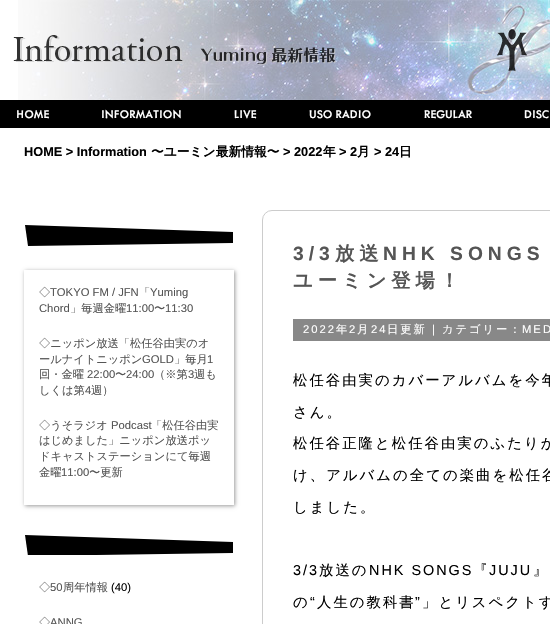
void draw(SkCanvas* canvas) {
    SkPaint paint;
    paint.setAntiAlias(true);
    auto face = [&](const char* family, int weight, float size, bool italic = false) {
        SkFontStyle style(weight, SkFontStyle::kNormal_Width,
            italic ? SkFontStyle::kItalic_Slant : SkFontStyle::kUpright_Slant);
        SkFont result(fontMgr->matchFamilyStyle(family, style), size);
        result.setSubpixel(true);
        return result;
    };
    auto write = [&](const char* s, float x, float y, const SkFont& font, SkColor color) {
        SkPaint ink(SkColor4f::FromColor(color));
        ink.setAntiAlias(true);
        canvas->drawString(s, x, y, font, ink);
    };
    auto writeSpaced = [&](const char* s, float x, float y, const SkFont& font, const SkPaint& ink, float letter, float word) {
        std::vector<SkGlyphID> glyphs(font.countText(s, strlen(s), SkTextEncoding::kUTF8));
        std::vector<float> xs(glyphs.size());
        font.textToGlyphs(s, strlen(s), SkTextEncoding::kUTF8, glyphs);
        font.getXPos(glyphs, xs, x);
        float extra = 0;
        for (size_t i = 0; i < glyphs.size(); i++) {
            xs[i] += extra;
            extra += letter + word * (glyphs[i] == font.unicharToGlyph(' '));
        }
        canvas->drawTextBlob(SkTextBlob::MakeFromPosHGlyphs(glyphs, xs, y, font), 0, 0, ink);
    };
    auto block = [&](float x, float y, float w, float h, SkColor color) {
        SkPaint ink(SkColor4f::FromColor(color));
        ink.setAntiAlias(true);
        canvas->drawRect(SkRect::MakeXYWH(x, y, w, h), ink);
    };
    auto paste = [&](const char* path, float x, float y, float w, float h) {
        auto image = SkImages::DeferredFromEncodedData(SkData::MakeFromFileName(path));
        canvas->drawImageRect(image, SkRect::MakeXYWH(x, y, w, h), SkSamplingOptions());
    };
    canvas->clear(SK_ColorWHITE);
    paste("pic1.png", 18, 0, 532, 100);
    paste("pic2.png", 13, 29, 514, 42);
    block(0, 100, 550, 28, SK_ColorBLACK);
    auto kFont1 = face("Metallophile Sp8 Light", 500, 12.75f);
    write("HOME", 16, 118, kFont1, SK_ColorWHITE);
    write("INFORMATION", 101, 118, kFont1, SK_ColorWHITE);
    write("LIVE", 234, 118, kFont1, SK_ColorWHITE);
    write("USO RADIO", 309, 118, kFont1, SK_ColorWHITE);
    write("REGULAR", 424, 118, kFont1, SK_ColorWHITE);
    write("DISC", 524, 118, kFont1, SK_ColorWHITE);
    auto kFont2 = face("Liberation Sans", 700, 12.75f);
    write("HOME > Information", 24, 156, kFont2, SK_ColorBLACK);
    auto kFont3 = face("WenQuanYi Zen Hei", 700, 12.75f);
    write("〜ユーミン最新情報〜", 151, 156, kFont3, SK_ColorBLACK);
    write("> 2022", 283, 156, kFont2, SK_ColorBLACK);
    write("年", 323, 156, kFont3, SK_ColorBLACK);
    write("> 2", 339, 156, kFont2, SK_ColorBLACK);
    write("月", 357, 156, kFont3, SK_ColorBLACK);
    write("> 24", 374, 156, kFont2, SK_ColorBLACK);
    write("日", 399, 156, kFont3, SK_ColorBLACK);
    paint.setColor(SK_ColorBLACK);
    canvas->drawPath(SkPathBuilder().moveTo(25, 225).lineTo(28, 246).lineTo(233, 243).lineTo(233, 232).close().detach(), paint);
    canvas->save();
    canvas->clipPath(SkPathBuilder(SkPathFillType::kEvenOdd).moveTo(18, 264).lineTo(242, 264).lineTo(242, 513).lineTo(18, 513).close().moveTo(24, 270).lineTo(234, 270).lineTo(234, 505).lineTo(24, 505).close().detach(), true);
    paint.setColor(SkColorSetARGB(102, 0, 0, 0));
    paint.setMaskFilter(SkMaskFilter::MakeBlur(kNormal_SkBlurStyle, 2));
    canvas->drawRect(SkRect::MakeXYWH(25, 271, 210, 235), paint);
    paint.setMaskFilter(nullptr);
    canvas->restore();
    auto kFont4 = face("WenQuanYi Zen Hei", 500, 11.25f);
    write("◇", 39, 296, kFont4, SkColorSetRGB(85, 85, 85));
    auto kFont5 = face("Liberation Sans", 400, 11.25f);
    write("TOKYO FM / JFN", 50, 296, kFont5, SkColorSetRGB(85, 85, 85));
    write("「", 139, 296, kFont4, SkColorSetRGB(85, 85, 85));
    write("Yuming", 150, 296, kFont5, SkColorSetRGB(85, 85, 85));
    write("Chord", 39, 312, kFont5, SkColorSetRGB(85, 85, 85));
    write("」毎週金曜", 70, 312, kFont4, SkColorSetRGB(85, 85, 85));
    write("11:00", 126, 312, kFont5, SkColorSetRGB(85, 85, 85));
    write("〜", 154, 312, kFont4, SkColorSetRGB(85, 85, 85));
    write("11:30", 165, 312, kFont5, SkColorSetRGB(85, 85, 85));
    write("◇ニッポン放送「松任谷由実のオ", 39, 347, kFont4, SkColorSetRGB(85, 85, 85));
    write("ールナイトニッポン", 39, 363, kFont4, SkColorSetRGB(85, 85, 85));
    write("GOLD", 142, 363, kFont5, SkColorSetRGB(85, 85, 85));
    write("」毎月", 174, 363, kFont4, SkColorSetRGB(85, 85, 85));
    write("1", 207, 363, kFont5, SkColorSetRGB(85, 85, 85));
    write("回・金曜", 39, 378, kFont4, SkColorSetRGB(85, 85, 85));
    write("22:00", 87, 378, kFont5, SkColorSetRGB(85, 85, 85));
    write("〜", 115, 378, kFont4, SkColorSetRGB(85, 85, 85));
    write("24:00", 126, 378, kFont5, SkColorSetRGB(85, 85, 85));
    write("（※第", 154, 378, kFont4, SkColorSetRGB(85, 85, 85));
    write("3", 188, 378, kFont5, SkColorSetRGB(85, 85, 85));
    write("週も", 194, 378, kFont4, SkColorSetRGB(85, 85, 85));
    write("しくは第", 39, 394, kFont4, SkColorSetRGB(85, 85, 85));
    write("4", 85, 394, kFont5, SkColorSetRGB(85, 85, 85));
    write("週）", 91, 394, kFont4, SkColorSetRGB(85, 85, 85));
    write("◇うそラジオ", 39, 429, kFont4, SkColorSetRGB(85, 85, 85));
    write("Podcast", 111, 429, kFont5, SkColorSetRGB(85, 85, 85));
    write("「松任谷由実", 151, 429, kFont4, SkColorSetRGB(85, 85, 85));
    write("はじめました」ニッポン放送ポッ", 39, 444, kFont4, SkColorSetRGB(85, 85, 85));
    write("ドキャストステーションにて毎週", 39, 460, kFont4, SkColorSetRGB(85, 85, 85));
    write("金曜", 39, 476, kFont4, SkColorSetRGB(85, 85, 85));
    write("11:00", 61, 476, kFont5, SkColorSetRGB(85, 85, 85));
    write("〜更新", 89, 476, kFont4, SkColorSetRGB(85, 85, 85));
    canvas->save();
    canvas->clipRect(SkRect::MakeXYWH(24, 520, 210, 35));
    paint.setColor(SK_ColorBLACK);
    canvas->drawPath(SkPathBuilder().moveTo(25, 535).lineTo(28, 556).lineTo(233, 553).lineTo(233, 542).close().detach(), paint);
    canvas->restore();
    write("◇", 39, 591, kFont4, SkColorSetRGB(85, 85, 85));
    write("50", 50, 591, kFont5, SkColorSetRGB(85, 85, 85));
    write("周年情報", 63, 591, kFont4, SkColorSetRGB(85, 85, 85));
    write("(40)", 111, 591, kFont5, SK_ColorBLACK);
    write("◇", 39, 626, kFont4, SkColorSetRGB(85, 85, 85));
    write("ANNG", 50, 626, kFont5, SkColorSetRGB(85, 85, 85));
    paint.setStyle(SkPaint::kStroke_Style);
    paint.setStrokeWidth(1);
    paint.setColor(SkColorSetRGB(204, 204, 204));
    canvas->drawRoundRect(SkRect::MakeXYWH(262.5f, 210.5f, 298, 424), 9.5f, 9.5f, paint);
    auto kFont6 = face("Liberation Sans", 700, 19.25f);
    paint.setStyle(SkPaint::kFill_Style);
    paint.setColor(SkColorSetRGB(85, 85, 85));
    writeSpaced("3/3", 293, 260, kFont6, paint, 5, 0);
    auto kFont7 = face("WenQuanYi Zen Hei", 700, 19.25f);
    writeSpaced("放送", 335, 260, kFont7, paint, 5, 0);
    writeSpaced("NHK SONGS", 383, 260, kFont6, paint, 5, 0);
    writeSpaced("ユーミン登場！", 293, 287, kFont7, paint, 5, 0);
    block(293, 319, 257, 22, SkColorSetRGB(136, 136, 136));
    paint.setColor(SK_ColorWHITE);
    writeSpaced("2022", 303, 333, kFont5, paint, 2, 0);
    writeSpaced("年", 336, 333, kFont4, paint, 2, 0);
    writeSpaced("2", 349, 333, kFont5, paint, 2, 0);
    writeSpaced("月", 357, 333, kFont4, paint, 2, 0);
    writeSpaced("24", 371, 333, kFont5, paint, 2, 0);
    writeSpaced("日更新", 387, 333, kFont4, paint, 2, 0);
    writeSpaced("|", 432, 333, kFont5, paint, 2, 0);
    writeSpaced("カテゴリー：", 442, 333, kFont4, paint, 2, 0);
    writeSpaced("MED", 522, 333, kFont5, paint, 2, 0);
    auto kFont8 = face("WenQuanYi Zen Hei", 500, 14.4f);
    paint.setColor(SK_ColorBLACK);
    writeSpaced("松任谷由実のカバーアルバムを今年", 293, 385, kFont8, paint, 2, 0);
    writeSpaced("さん。", 293, 417, kFont8, paint, 2, 0);
    writeSpaced("松任谷正隆と松任谷由実のふたりが", 293, 448, kFont8, paint, 2, 0);
    writeSpaced("け、アルバムの全ての楽曲を松任谷", 293, 480, kFont8, paint, 2, 0);
    writeSpaced("しました。", 293, 512, kFont8, paint, 2, 0);
    auto kFont9 = face("Liberation Sans", 400, 14.4f);
    writeSpaced("3/3", 293, 575, kFont9, paint, 2, 0);
    writeSpaced("放送の", 319, 575, kFont8, paint, 2, 0);
    writeSpaced("NHK SONGS", 369, 575, kFont9, paint, 2, 0);
    writeSpaced("『", 473, 575, kFont8, paint, 2, 0);
    writeSpaced("JUJU", 489, 575, kFont9, paint, 2, 0);
    writeSpaced("』", 533, 575, kFont8, paint, 2, 0);
    writeSpaced("の", 293, 607, kFont8, paint, 2, 0);
    writeSpaced("“", 310, 607, kFont9, paint, 2, 0);
    writeSpaced("人生の教科書", 317, 607, kFont8, paint, 2, 0);
    writeSpaced("”", 415, 607, kFont9, paint, 2, 0);
    writeSpaced("」とリスペクトす", 422, 607, kFont8, paint, 2, 0);
}
